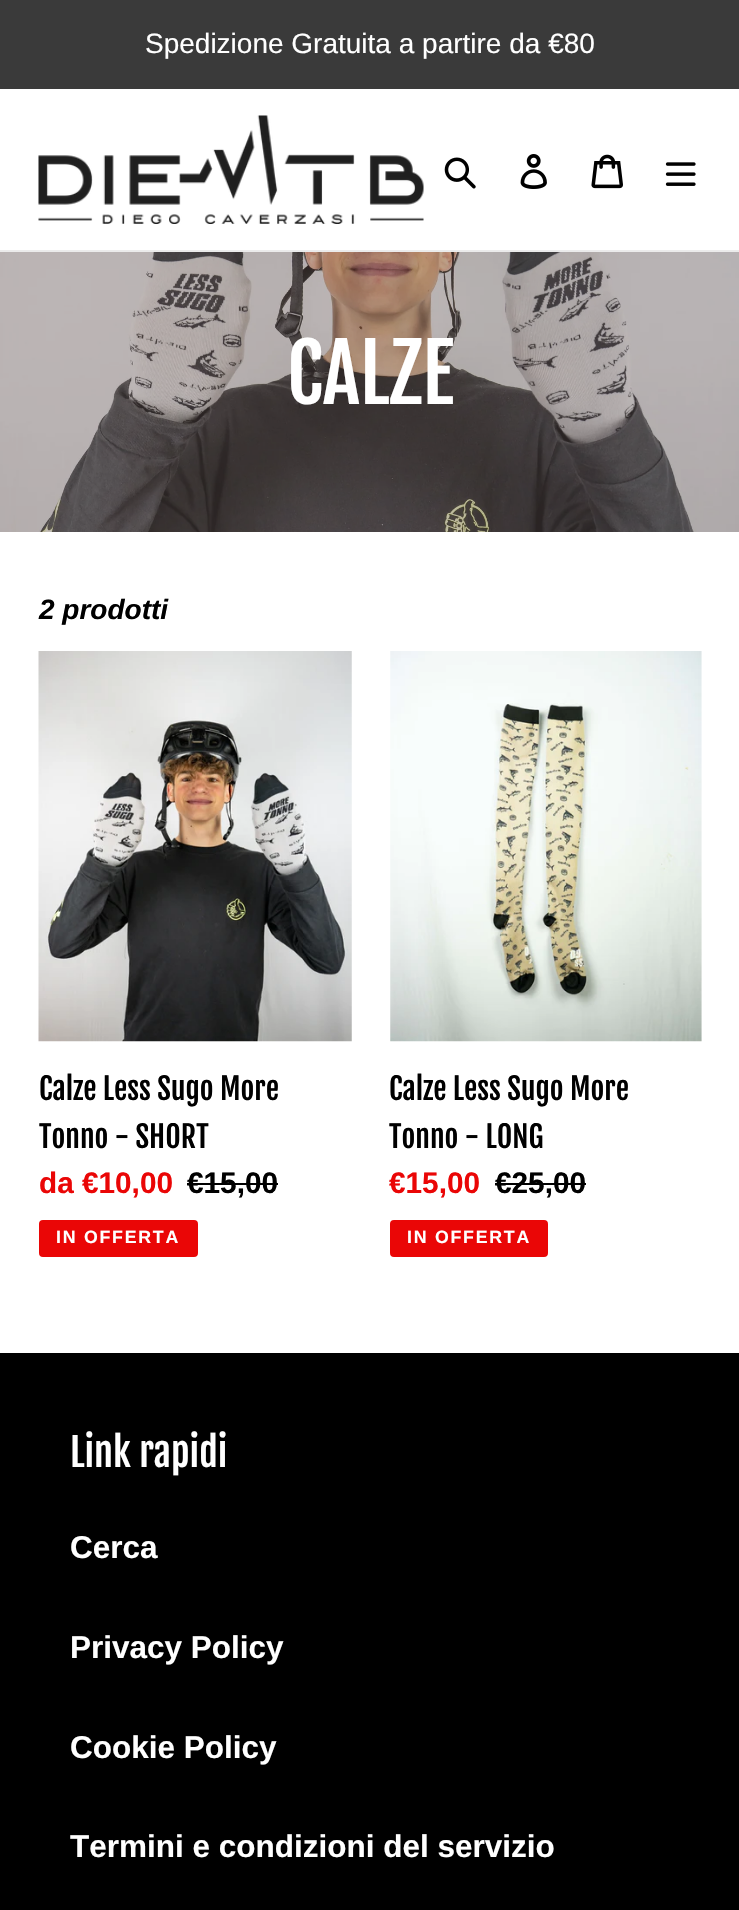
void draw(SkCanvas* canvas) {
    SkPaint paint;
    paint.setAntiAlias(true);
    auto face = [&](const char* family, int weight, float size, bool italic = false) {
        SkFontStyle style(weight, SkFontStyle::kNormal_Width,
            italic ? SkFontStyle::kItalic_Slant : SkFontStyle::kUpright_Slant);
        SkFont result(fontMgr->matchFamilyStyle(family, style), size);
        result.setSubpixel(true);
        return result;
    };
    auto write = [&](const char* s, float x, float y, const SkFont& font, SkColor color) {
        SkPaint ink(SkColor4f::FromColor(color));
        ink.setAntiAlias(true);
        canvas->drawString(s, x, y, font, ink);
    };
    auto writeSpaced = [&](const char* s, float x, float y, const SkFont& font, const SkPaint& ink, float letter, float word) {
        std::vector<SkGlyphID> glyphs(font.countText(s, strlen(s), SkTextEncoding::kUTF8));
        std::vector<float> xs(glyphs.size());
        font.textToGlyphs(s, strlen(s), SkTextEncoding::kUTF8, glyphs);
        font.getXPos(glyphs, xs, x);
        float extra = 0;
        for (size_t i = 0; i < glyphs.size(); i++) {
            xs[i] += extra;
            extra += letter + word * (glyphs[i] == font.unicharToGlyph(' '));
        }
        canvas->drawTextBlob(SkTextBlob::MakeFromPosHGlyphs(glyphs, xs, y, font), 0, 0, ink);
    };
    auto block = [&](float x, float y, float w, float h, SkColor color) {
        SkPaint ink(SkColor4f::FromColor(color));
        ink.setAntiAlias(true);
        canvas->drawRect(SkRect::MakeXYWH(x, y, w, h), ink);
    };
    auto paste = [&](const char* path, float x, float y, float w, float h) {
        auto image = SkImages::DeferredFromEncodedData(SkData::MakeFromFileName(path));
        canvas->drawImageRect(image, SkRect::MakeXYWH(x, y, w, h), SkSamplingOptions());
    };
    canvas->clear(SK_ColorWHITE);
    block(0, 0, 739, 89, SkColorSetRGB(58, 58, 58));
    auto kFont1 = face("Liberation Sans", 400, 28);
    write("Spedizione Gratuita a partire da €80", 145, 53, kFont1, SK_ColorWHITE);
    block(0, 250, 739, 2, SkColorSetRGB(235, 235, 235));
    paste("pic1.png", 38, 115, 386, 109);
    paste("pic2.png", 444, 157, 32, 32);
    paste("pic3.png", 520, 154, 27, 35);
    paste("pic4.png", 591, 154, 32, 35);
    paste("pic5.png", 665, 162, 31, 24);
    paste("pic6.png", 0, 252, 739, 280);
    auto kFont2 = face("Fjalla One", 400, 79);
    write("CALZE", 287, 404, kFont2, SK_ColorWHITE);
    auto kFont3 = face("Liberation Sans", 700, 28, true);
    write("2 prodotti", 39, 619, kFont3, SK_ColorBLACK);
    paste("pic7.png", 38, 651, 314, 391);
    auto kFont4 = face("Fjalla One", 400, 29.75f);
    write("Calze Less Sugo More", 39, 1100, kFont4, SK_ColorBLACK);
    write("Tonno - SHORT", 39, 1148, kFont4, SK_ColorBLACK);
    auto kFont5 = face("Liberation Sans", 700, 29.75f);
    write("da €10,00", 39, 1193, kFont5, SkColorSetRGB(234, 6, 6));
    write("€15,00", 187, 1193, kFont5, SK_ColorBLACK);
    block(187, 1183, 91, 2, SK_ColorBLACK);
    paint.setColor(SkColorSetRGB(234, 6, 6));
    canvas->drawRoundRect(SkRect::MakeXYWH(40, 1221, 157, 35), 3, 3, paint);
    paint.setStyle(SkPaint::kStroke_Style);
    paint.setStrokeWidth(2);
    canvas->drawRoundRect(SkRect::MakeXYWH(40, 1221, 157, 35), 3, 3, paint);
    auto kFont6 = face("Liberation Sans", 700, 17.75f);
    paint.setStyle(SkPaint::kFill_Style);
    paint.setColor(SK_ColorWHITE);
    writeSpaced("IN OFFERTA", 56, 1243, kFont6, paint, 1.75f, 0);
    paste("pic8.png", 390, 651, 312, 391);
    write("Calze Less Sugo More", 389, 1100, kFont4, SK_ColorBLACK);
    write("Tonno - LONG", 389, 1148, kFont4, SK_ColorBLACK);
    write("€15,00", 389, 1193, kFont5, SkColorSetRGB(234, 6, 6));
    write("€25,00", 495, 1193, kFont5, SK_ColorBLACK);
    block(495, 1183, 91, 2, SK_ColorBLACK);
    paint.setColor(SkColorSetRGB(234, 6, 6));
    canvas->drawRoundRect(SkRect::MakeXYWH(391, 1221, 156, 35), 3, 3, paint);
    paint.setStyle(SkPaint::kStroke_Style);
    canvas->drawRoundRect(SkRect::MakeXYWH(391, 1221, 156, 35), 3, 3, paint);
    paint.setStyle(SkPaint::kFill_Style);
    paint.setColor(SK_ColorWHITE);
    writeSpaced("IN OFFERTA", 407, 1243, kFont6, paint, 1.75f, 0);
    block(0, 1353, 739, 557, SK_ColorBLACK);
    auto kFont7 = face("Fjalla One", 400, 38.5f);
    write("Link rapidi", 70, 1467, kFont7, SK_ColorWHITE);
    auto kFont8 = face("Liberation Sans", 700, 31.5f);
    write("Cerca", 70, 1558, kFont8, SK_ColorWHITE);
    write("Privacy Policy", 70, 1658, kFont8, SK_ColorWHITE);
    write("Cookie Policy", 70, 1758, kFont8, SK_ColorWHITE);
    write("Termini e condizioni del servizio", 70, 1857, kFont8, SK_ColorWHITE);
}
